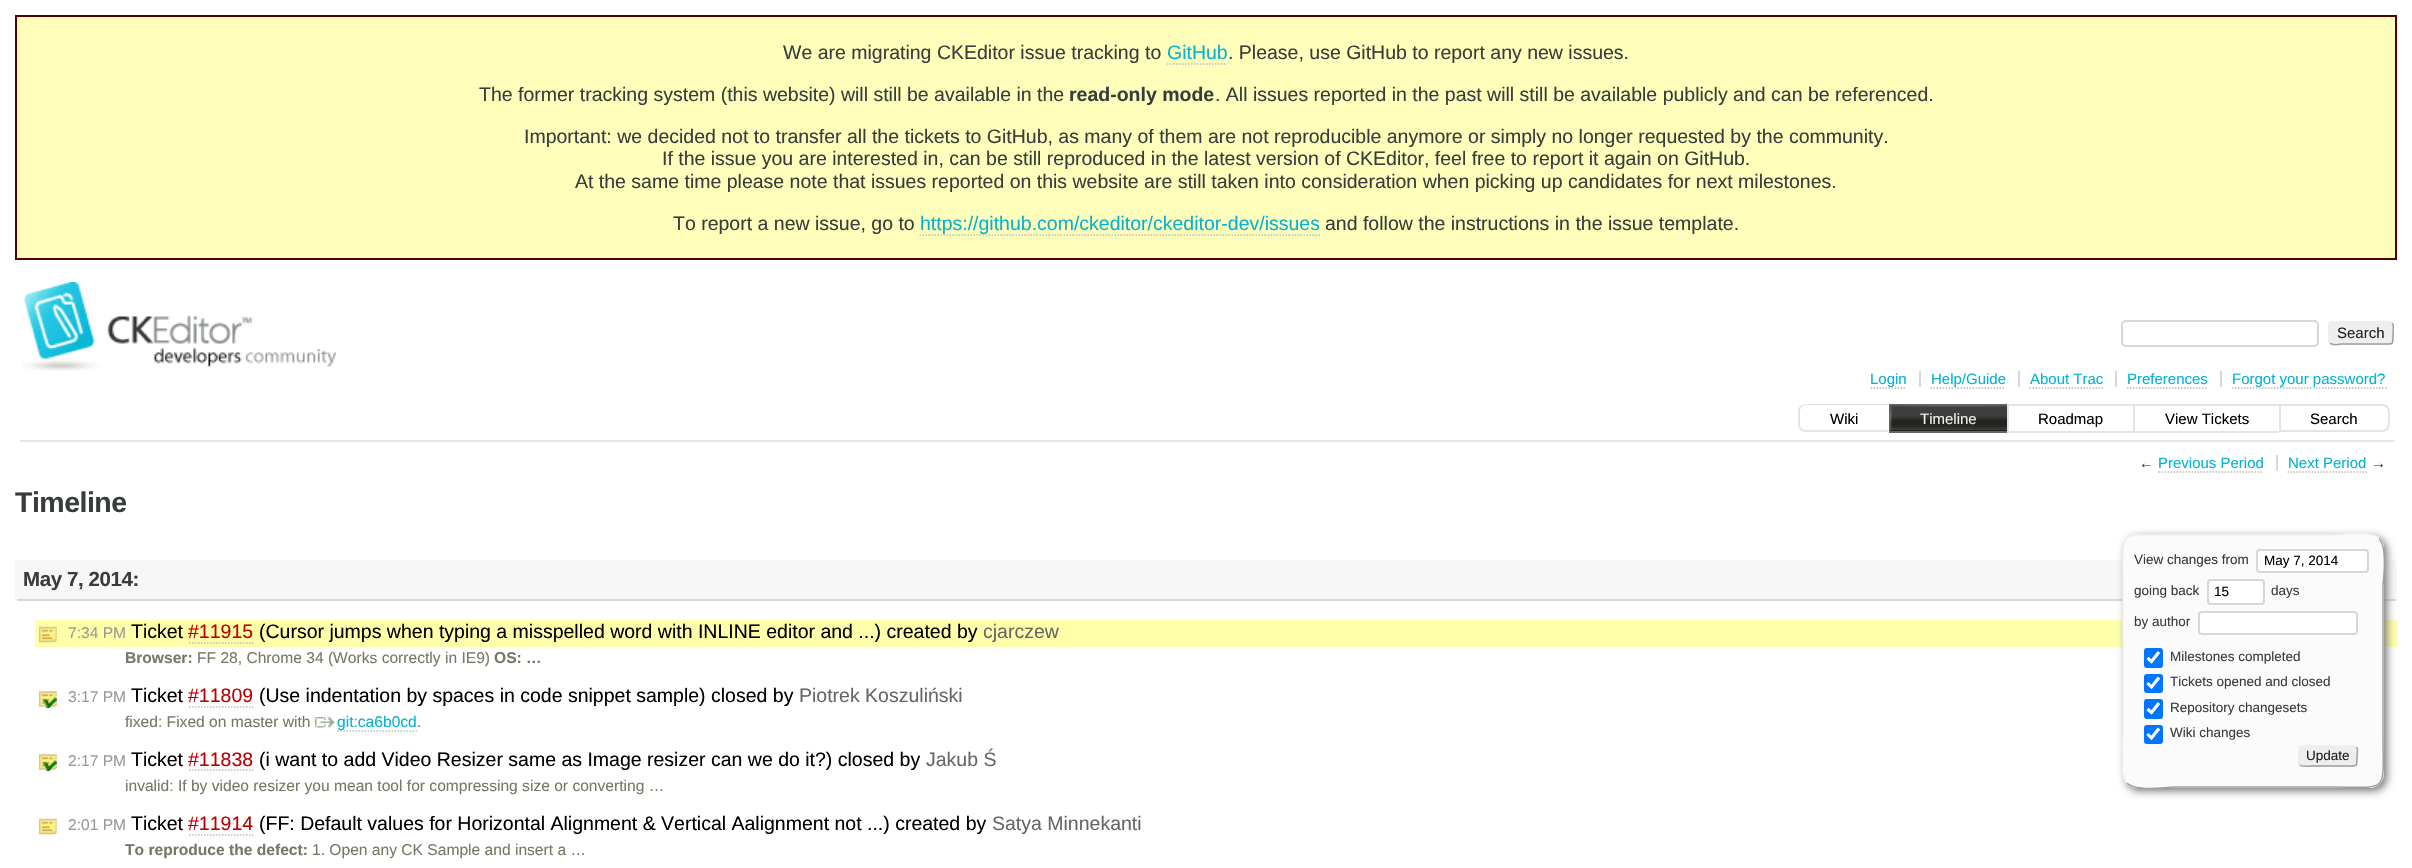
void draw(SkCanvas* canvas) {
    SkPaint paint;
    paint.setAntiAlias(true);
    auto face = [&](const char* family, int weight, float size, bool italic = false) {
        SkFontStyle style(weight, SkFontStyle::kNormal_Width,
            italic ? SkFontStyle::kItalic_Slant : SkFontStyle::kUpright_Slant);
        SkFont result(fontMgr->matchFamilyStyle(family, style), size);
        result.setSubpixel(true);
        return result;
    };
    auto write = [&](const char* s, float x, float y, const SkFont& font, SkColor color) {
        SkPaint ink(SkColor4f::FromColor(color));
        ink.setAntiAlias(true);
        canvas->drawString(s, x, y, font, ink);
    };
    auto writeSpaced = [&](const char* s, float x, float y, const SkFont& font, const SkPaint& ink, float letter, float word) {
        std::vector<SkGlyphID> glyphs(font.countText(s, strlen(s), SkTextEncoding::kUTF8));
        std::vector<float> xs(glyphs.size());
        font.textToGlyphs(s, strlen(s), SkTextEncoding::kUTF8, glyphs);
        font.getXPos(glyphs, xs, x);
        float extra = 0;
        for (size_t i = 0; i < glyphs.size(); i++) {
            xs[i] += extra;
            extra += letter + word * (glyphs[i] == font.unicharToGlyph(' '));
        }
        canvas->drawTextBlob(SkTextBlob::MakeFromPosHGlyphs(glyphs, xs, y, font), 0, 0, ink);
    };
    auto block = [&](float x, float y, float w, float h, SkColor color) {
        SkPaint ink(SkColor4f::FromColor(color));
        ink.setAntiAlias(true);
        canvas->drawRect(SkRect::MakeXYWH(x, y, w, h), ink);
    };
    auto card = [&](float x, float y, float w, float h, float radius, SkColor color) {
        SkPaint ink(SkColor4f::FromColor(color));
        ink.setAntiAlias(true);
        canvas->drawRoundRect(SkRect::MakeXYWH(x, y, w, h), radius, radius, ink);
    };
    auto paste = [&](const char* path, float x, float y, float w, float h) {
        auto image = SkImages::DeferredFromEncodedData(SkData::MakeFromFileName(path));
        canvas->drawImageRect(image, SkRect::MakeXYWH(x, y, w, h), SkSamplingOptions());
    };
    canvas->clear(SK_ColorWHITE);
    paint.setColor(SkColorSetRGB(255, 255, 187));
    canvas->drawRect(SkRect::MakeXYWH(16, 16, 2380, 243), paint);
    paint.setStyle(SkPaint::kStroke_Style);
    paint.setStrokeWidth(2);
    paint.setColor(SkColorSetRGB(85, 0, 0));
    canvas->drawRect(SkRect::MakeXYWH(16, 16, 2380, 243), paint);
    auto kFont1 = face("Liberation Sans", 400, 19.5f);
    write("We are migrating CKEditor issue tracking to", 783, 59, kFont1, SkColorSetRGB(56, 60, 61));
    write("GitHub", 1167, 59, kFont1, SkColorSetRGB(5, 178, 210));
    paint.setStrokeWidth(1.5f);
    paint.setColor(SkColorSetRGB(187, 187, 187));
    paint.setPathEffect(SkDashPathEffect::Make({{1.5f, 1.5f}}, 0));
    canvas->drawPath(SkPathBuilder().moveTo(1167, 64).lineTo(1227, 64).detach(), paint);
    paint.setPathEffect(nullptr);
    write(". Please, use GitHub to report any new issues.", 1228, 59, kFont1, SkColorSetRGB(56, 60, 61));
    write("The former tracking system (this website) will still be available in the", 479, 101, kFont1, SkColorSetRGB(56, 60, 61));
    auto kFont2 = face("Liberation Sans", 700, 19.5f);
    write("read-only mode", 1069, 101, kFont2, SkColorSetRGB(56, 60, 61));
    write(". All issues reported in the past will still be available publicly and can be referenced.", 1215, 101, kFont1, SkColorSetRGB(56, 60, 61));
    write("Important: we decided not to transfer all the tickets to GitHub, as many of them are not reproducible anymore or simply no longer requested by the community.", 524, 143, kFont1, SkColorSetRGB(56, 60, 61));
    write("If the issue you are interested in, can be still reproduced in the latest version of CKEditor, feel free to report it again on GitHub.", 662, 165, kFont1, SkColorSetRGB(56, 60, 61));
    write("At the same time please note that issues reported on this website are still taken into consideration when picking up candidates for next milestones.", 575, 188, kFont1, SkColorSetRGB(56, 60, 61));
    write("To report a new issue, go to", 673, 230, kFont1, SkColorSetRGB(56, 60, 61));
    paint.setPathEffect(SkDashPathEffect::Make({{1.5f, 1.5f}}, 0));
    canvas->drawPath(SkPathBuilder().moveTo(919.5f, 235).lineTo(1320, 235).detach(), paint);
    paint.setPathEffect(nullptr);
    write("https://github.com/ckeditor/ckeditor-dev/issues", 920, 230, kFont1, SkColorSetRGB(5, 178, 210));
    write("and follow the instructions in the issue template.", 1325, 230, kFont1, SkColorSetRGB(56, 60, 61));
    paste("pic1.png", 22, 282, 314, 89);
    paint.setStrokeWidth(2);
    paint.setColor(SkColorSetRGB(215, 215, 215));
    canvas->drawRoundRect(SkRect::MakeXYWH(2122, 321, 196, 25), 4, 4, paint);
    card(2328, 321, 66, 24, 5, SkColorSetRGB(238, 238, 238));
    paint.setStrokeWidth(1.5f);
    paint.setColor(SkColorSetRGB(159, 159, 159));
    canvas->drawPath(SkPathBuilder().moveTo(2392, 323).cubicTo(2394.5f, 325, 2393, 330, 2393, 333).cubicTo(2393, 346, 2394, 344, 2380, 344).lineTo(2342, 344).cubicTo(2341.5f, 344, 2332.5f, 346, 2330, 343).detach(), paint);
    paint.setColor(SkColorSetRGB(238, 238, 238));
    canvas->drawPath(SkPathBuilder().moveTo(2330, 343).cubicTo(2327.5f, 341, 2329, 336, 2329, 333).cubicTo(2329, 320, 2328, 322, 2342, 322).lineTo(2380, 322).cubicTo(2380.5f, 322, 2389.5f, 320, 2392, 323).detach(), paint);
    auto kFont3 = face("Liberation Sans", 400, 15);
    write("Search", 2337, 338, kFont3, SkColorSetRGB(34, 34, 34));
    block(1919, 371, 2, 16, SkColorSetRGB(215, 215, 215));
    paint.setColor(SkColorSetRGB(187, 187, 187));
    paint.setPathEffect(SkDashPathEffect::Make({{1.5f, 1.5f}}, 0));
    canvas->drawPath(SkPathBuilder().moveTo(1870.5f, 388).lineTo(1906.5f, 388).detach(), paint);
    paint.setPathEffect(nullptr);
    write("Login", 1870, 384, kFont3, SkColorSetRGB(5, 178, 210));
    block(2018, 371, 2, 16, SkColorSetRGB(215, 215, 215));
    paint.setPathEffect(SkDashPathEffect::Make({{1.5f, 1.5f}}, 0));
    canvas->drawPath(SkPathBuilder().moveTo(1930.5f, 388).lineTo(2005.5f, 388).detach(), paint);
    paint.setPathEffect(nullptr);
    write("Help/Guide", 1931, 384, kFont3, SkColorSetRGB(5, 178, 210));
    block(2115, 371, 2, 16, SkColorSetRGB(215, 215, 215));
    write("About Trac", 2030, 384, kFont3, SkColorSetRGB(5, 178, 210));
    paint.setPathEffect(SkDashPathEffect::Make({{1.5f, 1.5f}}, 0));
    canvas->drawPath(SkPathBuilder().moveTo(2029.5f, 388).lineTo(2103, 388).detach(), paint);
    paint.setPathEffect(nullptr);
    block(2220, 371, 2, 16, SkColorSetRGB(215, 215, 215));
    write("Preferences", 2127, 384, kFont3, SkColorSetRGB(5, 178, 210));
    paint.setPathEffect(SkDashPathEffect::Make({{1.5f, 1.5f}}, 0));
    canvas->drawPath(SkPathBuilder().moveTo(2127, 388).lineTo(2208, 388).detach(), paint);
    paint.setPathEffect(nullptr);
    paint.setPathEffect(SkDashPathEffect::Make({{1.5f, 1.5f}}, 0));
    canvas->drawPath(SkPathBuilder().moveTo(2232, 388).lineTo(2386.5f, 388).detach(), paint);
    paint.setPathEffect(nullptr);
    write("Forgot your password?", 2232, 384, kFont3, SkColorSetRGB(5, 178, 210));
    block(20, 440, 2374, 2, SkColorSetRGB(228, 228, 228));
    paint.setStyle(SkPaint::kFill_Style);
    paint.setColor(SkColorSetRGB(228, 228, 228));
    canvas->drawPath(SkPathBuilder(SkPathFillType::kEvenOdd).moveTo(1806, 404).lineTo(1888, 404).lineTo(1888, 432).lineTo(1806, 432).cubicTo(1802, 432, 1798, 429, 1798, 424).lineTo(1798, 411).cubicTo(1798, 407, 1802, 404, 1806, 404).close().moveTo(1806, 405).lineTo(1888, 405).lineTo(1888, 430).lineTo(1806, 430).cubicTo(1803, 430, 1800, 428, 1800, 424).lineTo(1800, 411).cubicTo(1800, 408, 1803, 405, 1806, 405).close().detach(), paint);
    write("Wiki", 1830, 424, kFont3, SK_ColorBLACK);
    block(1889, 404, 118, 1, SkColorSetRGB(102, 102, 102));
    block(1889, 431, 118, 2, SkColorSetRGB(102, 102, 102));
    block(1889, 404, 2, 28, SkColorSetRGB(102, 102, 102));
    block(1890, 405, 117, 26, SK_ColorBLACK);
    paste("pic2.png", 1890, 405, 117, 26);
    write("Timeline", 1920, 424, kFont3, SkColorSetRGB(238, 238, 238));
    block(2007, 404, 272, 2, SkColorSetRGB(228, 228, 228));
    block(2007, 431, 272, 2, SkColorSetRGB(228, 228, 228));
    block(2007, 404, 2, 28, SkColorSetRGB(228, 228, 228));
    write("Roadmap", 2038, 424, kFont3, SK_ColorBLACK);
    block(2133, 404, 2, 28, SkColorSetRGB(228, 228, 228));
    write("View Tickets", 2165, 424, kFont3, SK_ColorBLACK);
    paint.setStyle(SkPaint::kStroke_Style);
    paint.setStrokeWidth(2);
    canvas->drawPath(SkPathBuilder().moveTo(2280, 405).lineTo(2382, 405).cubicTo(2386, 405, 2389, 408, 2389, 412).lineTo(2389, 424).cubicTo(2389, 428, 2386, 431, 2382, 431).lineTo(2280, 431).close().detach(), paint);
    write("Search", 2310, 424, kFont3, SK_ColorBLACK);
    block(2276, 455, 2, 16, SkColorSetRGB(215, 215, 215));
    write("←", 2139, 468, kFont3, SkColorSetRGB(56, 60, 61));
    write("Previous Period", 2158, 468, kFont3, SkColorSetRGB(5, 178, 210));
    paint.setStrokeWidth(1.5f);
    paint.setColor(SkColorSetRGB(187, 187, 187));
    paint.setPathEffect(SkDashPathEffect::Make({{1.5f, 1.5f}}, 0));
    canvas->drawPath(SkPathBuilder().moveTo(2158.5f, 472).lineTo(2263.5f, 472).detach(), paint);
    paint.setPathEffect(nullptr);
    write("Next Period", 2288, 468, kFont3, SkColorSetRGB(5, 178, 210));
    paint.setPathEffect(SkDashPathEffect::Make({{1.5f, 1.5f}}, 0));
    canvas->drawPath(SkPathBuilder().moveTo(2287.5f, 472).lineTo(2367, 472).detach(), paint);
    paint.setPathEffect(nullptr);
    write("→", 2371, 468, kFont3, SkColorSetRGB(56, 60, 61));
    auto kFont4 = face("Liberation Sans", 700, 28.5f);
    paint.setStyle(SkPaint::kFill_Style);
    paint.setColor(SkColorSetRGB(56, 60, 61));
    writeSpaced("Timeline", 15, 512, kFont4, paint, -0.5f, 0);
    card(15, 560, 2382, 40, 2, SkColorSetRGB(247, 247, 247));
    block(17, 599, 2379, 2, SkColorSetRGB(215, 215, 215));
    auto kFont5 = face("Liberation Sans", 700, 20.5f);
    writeSpaced("May 7, 2014:", 23, 586, kFont5, paint, -0.4f, 0);
    block(35, 620, 2362, 27, SkColorSetRGB(255, 255, 170));
    paint.setColor(SkColorSetRGB(119, 119, 119));
    paint.setMaskFilter(SkMaskFilter::MakeBlur(kNormal_SkBlurStyle, 4.5f));
    canvas->drawRoundRect(SkRect::MakeXYWH(2126, 537, 261, 254), 14, 14, paint);
    paint.setMaskFilter(nullptr);
    card(2123, 534, 261, 254, 14, SkColorSetRGB(251, 251, 251));
    paint.setStyle(SkPaint::kStroke_Style);
    paint.setColor(SkColorSetRGB(159, 159, 159));
    canvas->drawPath(SkPathBuilder().moveTo(2379, 538.5f).cubicTo(2388, 547.5f, 2383, 583.5f, 2383, 585).lineTo(2383, 736).cubicTo(2383, 794.5f, 2390, 787, 2331, 787).lineTo(2175, 787).cubicTo(2174, 787, 2136, 792, 2127, 783).detach(), paint);
    paint.setColor(SkColorSetRGB(238, 238, 238));
    canvas->drawPath(SkPathBuilder().moveTo(2127, 783).cubicTo(2118, 774, 2123, 738, 2123, 736).lineTo(2123, 585).cubicTo(2123, 527, 2116, 535, 2175, 535).lineTo(2331, 535).cubicTo(2332, 535, 2370, 529.5f, 2379, 538.5f).detach(), paint);
    auto kFont6 = face("Liberation Sans", 400, 13.5f);
    write("View changes from", 2134, 564, kFont6, SkColorSetRGB(56, 60, 61));
    paint.setStyle(SkPaint::kFill_Style);
    paint.setColor(SK_ColorWHITE);
    canvas->drawRoundRect(SkRect::MakeXYWH(2257, 550, 111, 22), 3, 3, paint);
    paint.setStyle(SkPaint::kStroke_Style);
    paint.setStrokeWidth(2);
    paint.setColor(SkColorSetRGB(215, 215, 215));
    canvas->drawRoundRect(SkRect::MakeXYWH(2257, 550, 111, 22), 3, 3, paint);
    write("May 7, 2014", 2264, 565, kFont6, SK_ColorBLACK);
    write("going back", 2134, 595, kFont6, SkColorSetRGB(56, 60, 61));
    paint.setStyle(SkPaint::kFill_Style);
    paint.setColor(SK_ColorWHITE);
    canvas->drawRoundRect(SkRect::MakeXYWH(2208, 580, 56, 24), 3, 3, paint);
    paint.setStyle(SkPaint::kStroke_Style);
    paint.setColor(SkColorSetRGB(215, 215, 215));
    canvas->drawRoundRect(SkRect::MakeXYWH(2208, 580, 56, 24), 3, 3, paint);
    write("15", 2214, 596, kFont6, SK_ColorBLACK);
    write("days", 2271, 595, kFont6, SkColorSetRGB(56, 60, 61));
    write("by author", 2134, 626, kFont6, SkColorSetRGB(56, 60, 61));
    paint.setStyle(SkPaint::kFill_Style);
    paint.setColor(SK_ColorWHITE);
    canvas->drawRoundRect(SkRect::MakeXYWH(2199, 612, 158, 22), 3, 3, paint);
    paint.setStyle(SkPaint::kStroke_Style);
    paint.setColor(SkColorSetRGB(215, 215, 215));
    canvas->drawRoundRect(SkRect::MakeXYWH(2199, 612, 158, 22), 3, 3, paint);
    card(2144, 648, 19, 20, 3, SkColorSetRGB(0, 117, 255));
    paint.setStrokeWidth(3.1f);
    paint.setColor(SK_ColorWHITE);
    canvas->drawPath(SkPathBuilder().moveTo(2147.5f, 658).lineTo(2151.5f, 661.5f).lineTo(2159, 652).detach(), paint);
    write("Milestones completed", 2170, 661, kFont6, SkColorSetRGB(56, 60, 61));
    card(2144, 674, 19, 19, 3, SkColorSetRGB(0, 117, 255));
    canvas->drawPath(SkPathBuilder().moveTo(2147.5f, 683).lineTo(2151.5f, 687).lineTo(2159, 677.5f).detach(), paint);
    write("Tickets opened and closed", 2170, 686, kFont6, SkColorSetRGB(56, 60, 61));
    card(2144, 699, 19, 20, 3, SkColorSetRGB(0, 117, 255));
    canvas->drawPath(SkPathBuilder().moveTo(2147.5f, 709).lineTo(2151.5f, 712.5f).lineTo(2159, 703).detach(), paint);
    write("Repository changesets", 2170, 712, kFont6, SkColorSetRGB(56, 60, 61));
    card(2144, 725, 19, 19, 3, SkColorSetRGB(0, 117, 255));
    canvas->drawPath(SkPathBuilder().moveTo(2147.5f, 734).lineTo(2151.5f, 738).lineTo(2159, 728.5f).detach(), paint);
    write("Wiki changes", 2170, 737, kFont6, SkColorSetRGB(56, 60, 61));
    card(2298, 746, 60, 21, 4, SkColorSetRGB(238, 238, 238));
    paint.setStrokeWidth(1.5f);
    paint.setColor(SkColorSetRGB(159, 159, 159));
    canvas->drawPath(SkPathBuilder().moveTo(2356.5f, 747).cubicTo(2358.5f, 749.5f, 2357, 753.5f, 2357, 756).cubicTo(2357, 767.5f, 2357.5f, 766, 2345.5f, 766).lineTo(2310.5f, 766).cubicTo(2310.5f, 766, 2302, 767, 2299.5f, 765).detach(), paint);
    paint.setColor(SkColorSetRGB(238, 238, 238));
    canvas->drawPath(SkPathBuilder().moveTo(2299.5f, 765).cubicTo(2297.5f, 762.5f, 2299, 758.5f, 2299, 756).cubicTo(2299, 744.5f, 2298.5f, 746, 2310.5f, 746).lineTo(2345.5f, 746).cubicTo(2345.5f, 746, 2354, 745, 2356.5f, 747).detach(), paint);
    write("Update", 2306, 760, kFont6, SkColorSetRGB(34, 34, 34));
    paste("pic3.png", 39, 626, 18, 17);
    paste("pic4.png", 39, 626, 18, 17);
    auto kFont7 = face("Liberation Sans", 400, 15.6f);
    write("7:34 PM", 68, 638, kFont7, SkColorSetRGB(153, 153, 153));
    write("Ticket", 131, 638, kFont1, SK_ColorBLACK);
    write("#11915", 188, 638, kFont1, SkColorSetRGB(187, 0, 0));
    paint.setColor(SkColorSetRGB(187, 187, 187));
    paint.setPathEffect(SkDashPathEffect::Make({{1.5f, 1.5f}}, 0));
    canvas->drawPath(SkPathBuilder().moveTo(189, 643).lineTo(253.5f, 643).detach(), paint);
    paint.setPathEffect(nullptr);
    write("(Cursor jumps when typing a misspelled word with INLINE editor and ...) created by", 259, 638, kFont1, SK_ColorBLACK);
    write("cjarczew", 983, 638, kFont1, SkColorSetRGB(102, 102, 102));
    auto kFont8 = face("Liberation Sans", 700, 15.6f);
    write("Browser:", 125, 663, kFont8, SkColorSetRGB(119, 119, 102));
    write("FF 28, Chrome 34 (Works correctly in IE9)", 197, 663, kFont7, SkColorSetRGB(119, 119, 102));
    write("OS: …", 494, 663, kFont8, SkColorSetRGB(119, 119, 102));
    paste("pic5.png", 39, 691, 18, 17);
    paste("pic6.png", 39, 691, 18, 17);
    write("3:17 PM", 68, 702, kFont7, SkColorSetRGB(153, 153, 153));
    write("Ticket", 131, 702, kFont1, SK_ColorBLACK);
    write("#11809", 188, 702, kFont1, SkColorSetRGB(187, 0, 0));
    paint.setPathEffect(SkDashPathEffect::Make({{1.5f, 1.5f}}, 0));
    canvas->drawPath(SkPathBuilder().moveTo(189, 707).lineTo(253.5f, 707).detach(), paint);
    paint.setPathEffect(nullptr);
    write("(Use indentation by spaces in code snippet sample) closed by", 259, 702, kFont1, SK_ColorBLACK);
    write("Piotrek Koszuliński", 799, 702, kFont1, SkColorSetRGB(102, 102, 102));
    write("fixed: Fixed on master with", 125, 727, kFont7, SkColorSetRGB(119, 119, 102));
    paste("pic7.png", 315, 717, 20, 11);
    paint.setPathEffect(SkDashPathEffect::Make({{1.5f, 1.5f}}, 0));
    canvas->drawPath(SkPathBuilder().moveTo(337.5f, 731).lineTo(417, 731).detach(), paint);
    paint.setPathEffect(nullptr);
    write("git:ca6b0cd", 337, 727, kFont7, SkColorSetRGB(5, 178, 210));
    write(".", 417, 727, kFont7, SkColorSetRGB(119, 119, 102));
    paste("pic5.png", 39, 754, 18, 17);
    paste("pic6.png", 39, 754, 18, 17);
    write("2:17 PM", 68, 766, kFont7, SkColorSetRGB(153, 153, 153));
    write("Ticket", 131, 766, kFont1, SK_ColorBLACK);
    write("#11838", 188, 766, kFont1, SkColorSetRGB(187, 0, 0));
    paint.setPathEffect(SkDashPathEffect::Make({{1.5f, 1.5f}}, 0));
    canvas->drawPath(SkPathBuilder().moveTo(189, 770).lineTo(253.5f, 770).detach(), paint);
    paint.setPathEffect(nullptr);
    write("(i want to add Video Resizer same as Image resizer can we do it?) closed by", 259, 766, kFont1, SK_ColorBLACK);
    write("Jakub Ś", 926, 766, kFont1, SkColorSetRGB(102, 102, 102));
    write("invalid: If by video resizer you mean tool for compressing size or converting …", 125, 791, kFont7, SkColorSetRGB(119, 119, 102));
    paste("pic8.png", 39, 818, 18, 17);
    paste("pic9.png", 39, 818, 18, 17);
    write("2:01 PM", 68, 830, kFont7, SkColorSetRGB(153, 153, 153));
    write("Ticket", 131, 830, kFont1, SK_ColorBLACK);
    write("#11914", 188, 830, kFont1, SkColorSetRGB(187, 0, 0));
    paint.setPathEffect(SkDashPathEffect::Make({{1.5f, 1.5f}}, 0));
    canvas->drawPath(SkPathBuilder().moveTo(189, 835).lineTo(253.5f, 835).detach(), paint);
    paint.setPathEffect(nullptr);
    write("(FF: Default values for Horizontal Alignment & Vertical Aalignment not ...) created by", 259, 830, kFont1, SK_ColorBLACK);
    write("Satya Minnekanti", 992, 830, kFont1, SkColorSetRGB(102, 102, 102));
    write("To reproduce the defect:", 125, 855, kFont8, SkColorSetRGB(119, 119, 102));
    write("1. Open any CK Sample and insert a …", 312, 855, kFont7, SkColorSetRGB(119, 119, 102));
}
